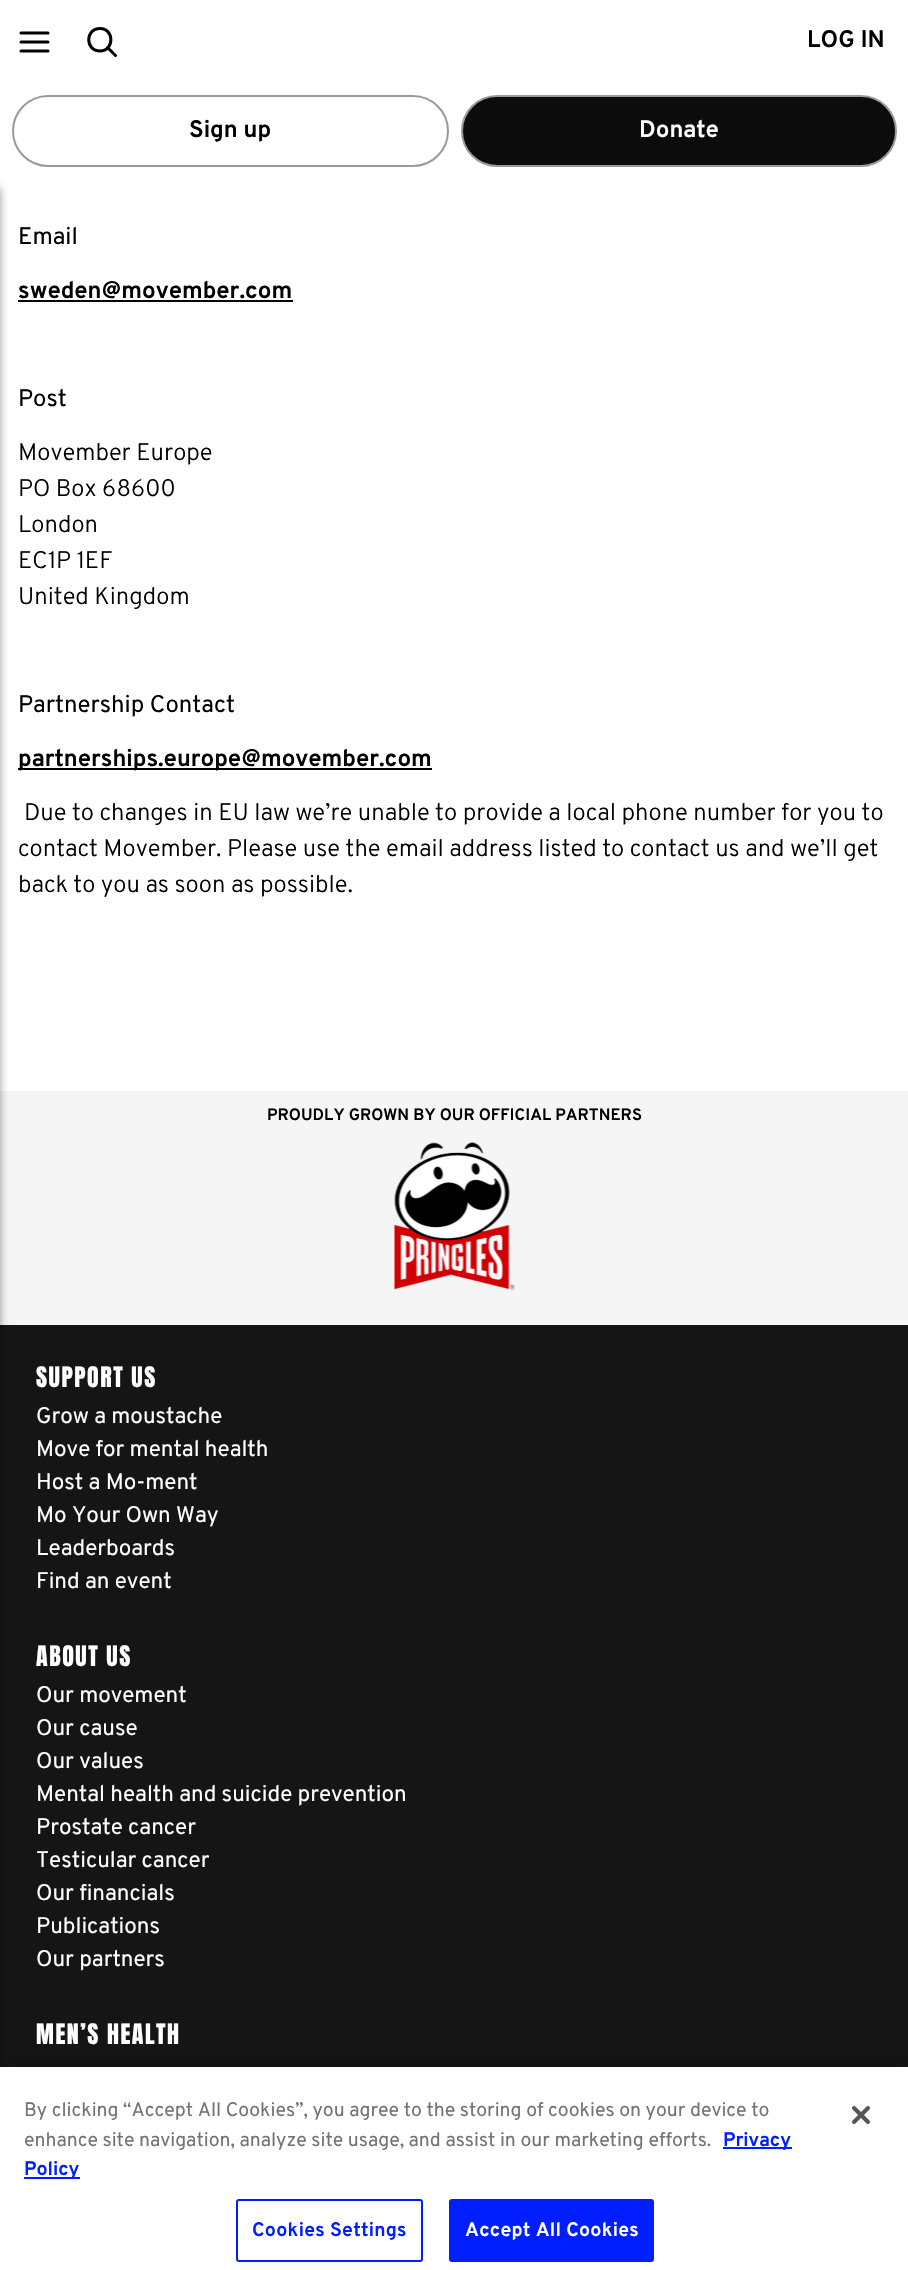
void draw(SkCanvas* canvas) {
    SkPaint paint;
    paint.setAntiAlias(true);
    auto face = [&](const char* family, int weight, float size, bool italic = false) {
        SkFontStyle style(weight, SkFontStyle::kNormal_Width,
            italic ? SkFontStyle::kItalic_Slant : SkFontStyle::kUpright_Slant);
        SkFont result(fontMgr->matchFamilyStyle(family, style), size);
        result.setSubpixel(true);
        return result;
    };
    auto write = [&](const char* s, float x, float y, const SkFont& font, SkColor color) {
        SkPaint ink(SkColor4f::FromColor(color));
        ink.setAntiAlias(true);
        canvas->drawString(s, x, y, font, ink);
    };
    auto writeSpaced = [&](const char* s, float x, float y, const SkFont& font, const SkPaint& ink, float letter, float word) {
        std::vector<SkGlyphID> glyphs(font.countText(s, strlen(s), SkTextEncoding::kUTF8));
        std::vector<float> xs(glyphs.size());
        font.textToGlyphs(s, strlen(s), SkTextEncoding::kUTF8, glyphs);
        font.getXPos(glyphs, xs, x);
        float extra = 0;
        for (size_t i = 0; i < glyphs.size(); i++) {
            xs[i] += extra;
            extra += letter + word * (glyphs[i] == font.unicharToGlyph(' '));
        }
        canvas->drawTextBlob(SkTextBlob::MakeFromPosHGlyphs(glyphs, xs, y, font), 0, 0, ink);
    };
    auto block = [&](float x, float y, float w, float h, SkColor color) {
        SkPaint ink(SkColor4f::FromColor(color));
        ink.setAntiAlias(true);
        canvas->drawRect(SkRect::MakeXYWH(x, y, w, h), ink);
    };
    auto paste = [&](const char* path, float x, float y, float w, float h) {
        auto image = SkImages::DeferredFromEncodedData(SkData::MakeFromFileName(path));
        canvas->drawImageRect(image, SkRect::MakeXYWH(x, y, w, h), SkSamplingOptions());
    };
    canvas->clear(SK_ColorWHITE);
    paint.setStyle(SkPaint::kStroke_Style);
    paint.setStrokeWidth(3);
    paint.setStrokeCap(SkPaint::kRound_Cap);
    paint.setStrokeJoin(SkPaint::kRound_Join);
    paint.setColor(SK_ColorBLACK);
    canvas->drawPath(SkPathBuilder().moveTo(21, 42).lineTo(48, 42).moveTo(21, 33).lineTo(48, 33).moveTo(21, 51).lineTo(48, 51).detach(), paint);
    canvas->drawPath(SkPathBuilder().moveTo(100, 51).cubicTo(114.5f, 51, 114.5f, 28.5f, 100, 28.5f).cubicTo(85, 28.5f, 85, 51, 100, 51).close().moveTo(115.5f, 55.5f).lineTo(107.5f, 47.5f).detach(), paint);
    auto kFont1 = face("Overpass", 700, 24);
    write("LOG IN", 807, 47, kFont1, SK_ColorBLACK);
    paint.setStrokeWidth(2);
    paint.setStrokeCap(SkPaint::kButt_Cap);
    paint.setStrokeJoin(SkPaint::kMiter_Join);
    paint.setColor(SkColorSetRGB(153, 153, 153));
    canvas->drawRoundRect(SkRect::MakeXYWH(13, 96, 435, 70), 35, 35, paint);
    write("Sign up", 189, 137, kFont1, SK_ColorBLACK);
    paint.setStyle(SkPaint::kFill_Style);
    paint.setColor(SkColorSetRGB(12, 12, 12));
    canvas->drawRoundRect(SkRect::MakeXYWH(462, 96, 434, 70), 35, 35, paint);
    paint.setStyle(SkPaint::kStroke_Style);
    paint.setColor(SkColorSetRGB(153, 153, 153));
    canvas->drawRoundRect(SkRect::MakeXYWH(462, 96, 434, 70), 35, 35, paint);
    write("Donate", 639, 137, kFont1, SK_ColorWHITE);
    block(0, 1091, 908, 234, SkColorSetRGB(245, 245, 246));
    block(0, 1325, 908, 742, SkColorSetRGB(21, 21, 21));
    paint.setStyle(SkPaint::kFill_Style);
    paint.setColor(SkColorSetARGB(102, 0, 0, 0));
    paint.setMaskFilter(SkMaskFilter::MakeBlur(kNormal_SkBlurStyle, 4.5f));
    canvas->drawRect(SkRect::MakeXYWH(-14, 188, 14, 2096), paint);
    paint.setMaskFilter(nullptr);
    auto kFont2 = face("Overpass", 400, 24);
    write("Email", 18, 244, kFont2, SK_ColorBLACK);
    write("sweden@movember.com", 18, 298, kFont1, SK_ColorBLACK);
    block(18, 300, 275, 2, SK_ColorBLACK);
    write("Post", 18, 406, kFont2, SK_ColorBLACK);
    auto kFont3 = face("Overpass", 300, 24);
    write("Movember Europe", 18, 460, kFont3, SK_ColorBLACK);
    write("PO Box 68600", 18, 496, kFont3, SK_ColorBLACK);
    write("London", 18, 532, kFont3, SK_ColorBLACK);
    write("EC1P 1EF", 18, 568, kFont3, SK_ColorBLACK);
    write("United Kingdom", 18, 604, kFont3, SK_ColorBLACK);
    write("Partnership Contact", 18, 712, kFont2, SK_ColorBLACK);
    block(18, 768, 414, 2, SK_ColorBLACK);
    write("partnerships.europe@movember.com", 18, 766, kFont1, SK_ColorBLACK);
    write("Due to changes in EU law we’re unable to provide a local phone number for you to", 24, 820, kFont3, SK_ColorBLACK);
    write("contact Movember. Please use the email address listed to contact us and we’ll get", 18, 856, kFont3, SK_ColorBLACK);
    write("back to you as soon as possible.", 18, 892, kFont3, SK_ColorBLACK);
    auto kFont4 = face("Overpass", 700, 16.5f);
    write("PROUDLY GROWN BY OUR OFFICIAL PARTNERS", 267, 1120, kFont4, SK_ColorBLACK);
    paste("pic1.png", 394, 1142, 121, 148);
    auto kFont5 = face("Anton", 400, 24);
    paint.setColor(SK_ColorWHITE);
    writeSpaced("SUPPORT US", 36, 1387, kFont5, paint, 1.5f, 0);
    auto kFont6 = face("Overpass", 400, 22.5f);
    write("Grow a moustache", 36, 1423, kFont6, SK_ColorWHITE);
    write("Move for mental health", 36, 1456, kFont6, SK_ColorWHITE);
    write("Host a Mo-ment", 36, 1489, kFont6, SK_ColorWHITE);
    write("Mo Your Own Way", 36, 1522, kFont6, SK_ColorWHITE);
    write("Leaderboards", 36, 1555, kFont6, SK_ColorWHITE);
    write("Find an event", 36, 1588, kFont6, SK_ColorWHITE);
    writeSpaced("ABOUT US", 36, 1666, kFont5, paint, 1.5f, 0);
    write("Our movement", 36, 1702, kFont6, SK_ColorWHITE);
    write("Our cause", 36, 1735, kFont6, SK_ColorWHITE);
    write("Our values", 36, 1768, kFont6, SK_ColorWHITE);
    write("Mental health and suicide prevention", 36, 1801, kFont6, SK_ColorWHITE);
    write("Prostate cancer", 36, 1834, kFont6, SK_ColorWHITE);
    write("Testicular cancer", 36, 1867, kFont6, SK_ColorWHITE);
    write("Our financials", 36, 1900, kFont6, SK_ColorWHITE);
    write("Publications", 36, 1933, kFont6, SK_ColorWHITE);
    write("Our partners", 36, 1966, kFont6, SK_ColorWHITE);
    writeSpaced("MEN’S HEALTH", 36, 2044, kFont5, paint, 1.5f, 0);
    paint.setColor(SkColorSetARGB(51, 0, 0, 0));
    paint.setMaskFilter(SkMaskFilter::MakeBlur(kNormal_SkBlurStyle, 13.5f));
    canvas->drawRect(SkRect::MakeXYWH(0, 2067, 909, 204), paint);
    paint.setMaskFilter(nullptr);
    block(0, 2067, 908, 203, SK_ColorWHITE);
    auto kFont7 = face("Overpass", 400, 19.5f);
    write("By clicking “Accept All Cookies”, you agree to the storing of cookies on your device to", 24, 2116, kFont7, SkColorSetRGB(115, 115, 115));
    write("enhance site navigation, analyze site usage, and assist in our marketing efforts.", 24, 2146, kFont7, SkColorSetRGB(115, 115, 115));
    block(723, 2147, 69, 2, SkColorSetRGB(0, 30, 255));
    auto kFont8 = face("Overpass", 700, 19.5f);
    write("Privacy", 723, 2146, kFont8, SkColorSetRGB(0, 30, 255));
    block(24, 2177, 56, 2, SkColorSetRGB(0, 30, 255));
    write("Policy", 24, 2175, kFont8, SkColorSetRGB(0, 30, 255));
    paint.setStyle(SkPaint::kStroke_Style);
    paint.setColor(SkColorSetRGB(0, 30, 255));
    canvas->drawRoundRect(SkRect::MakeXYWH(237, 2200, 185, 61), 2, 2, paint);
    paint.setStyle(SkPaint::kFill_Style);
    writeSpaced("Cookies Settings", 252, 2236, kFont8, paint, 0.25f, 0);
    canvas->drawRoundRect(SkRect::MakeXYWH(450, 2200, 203, 61), 2, 2, paint);
    paint.setStyle(SkPaint::kStroke_Style);
    canvas->drawRoundRect(SkRect::MakeXYWH(450, 2200, 203, 61), 2, 2, paint);
    paint.setStyle(SkPaint::kFill_Style);
    paint.setColor(SK_ColorWHITE);
    writeSpaced("Accept All Cookies", 465, 2236, kFont8, paint, 0.25f, 0);
    paste("pic2.png", 852, 2106, 18, 18);
}
